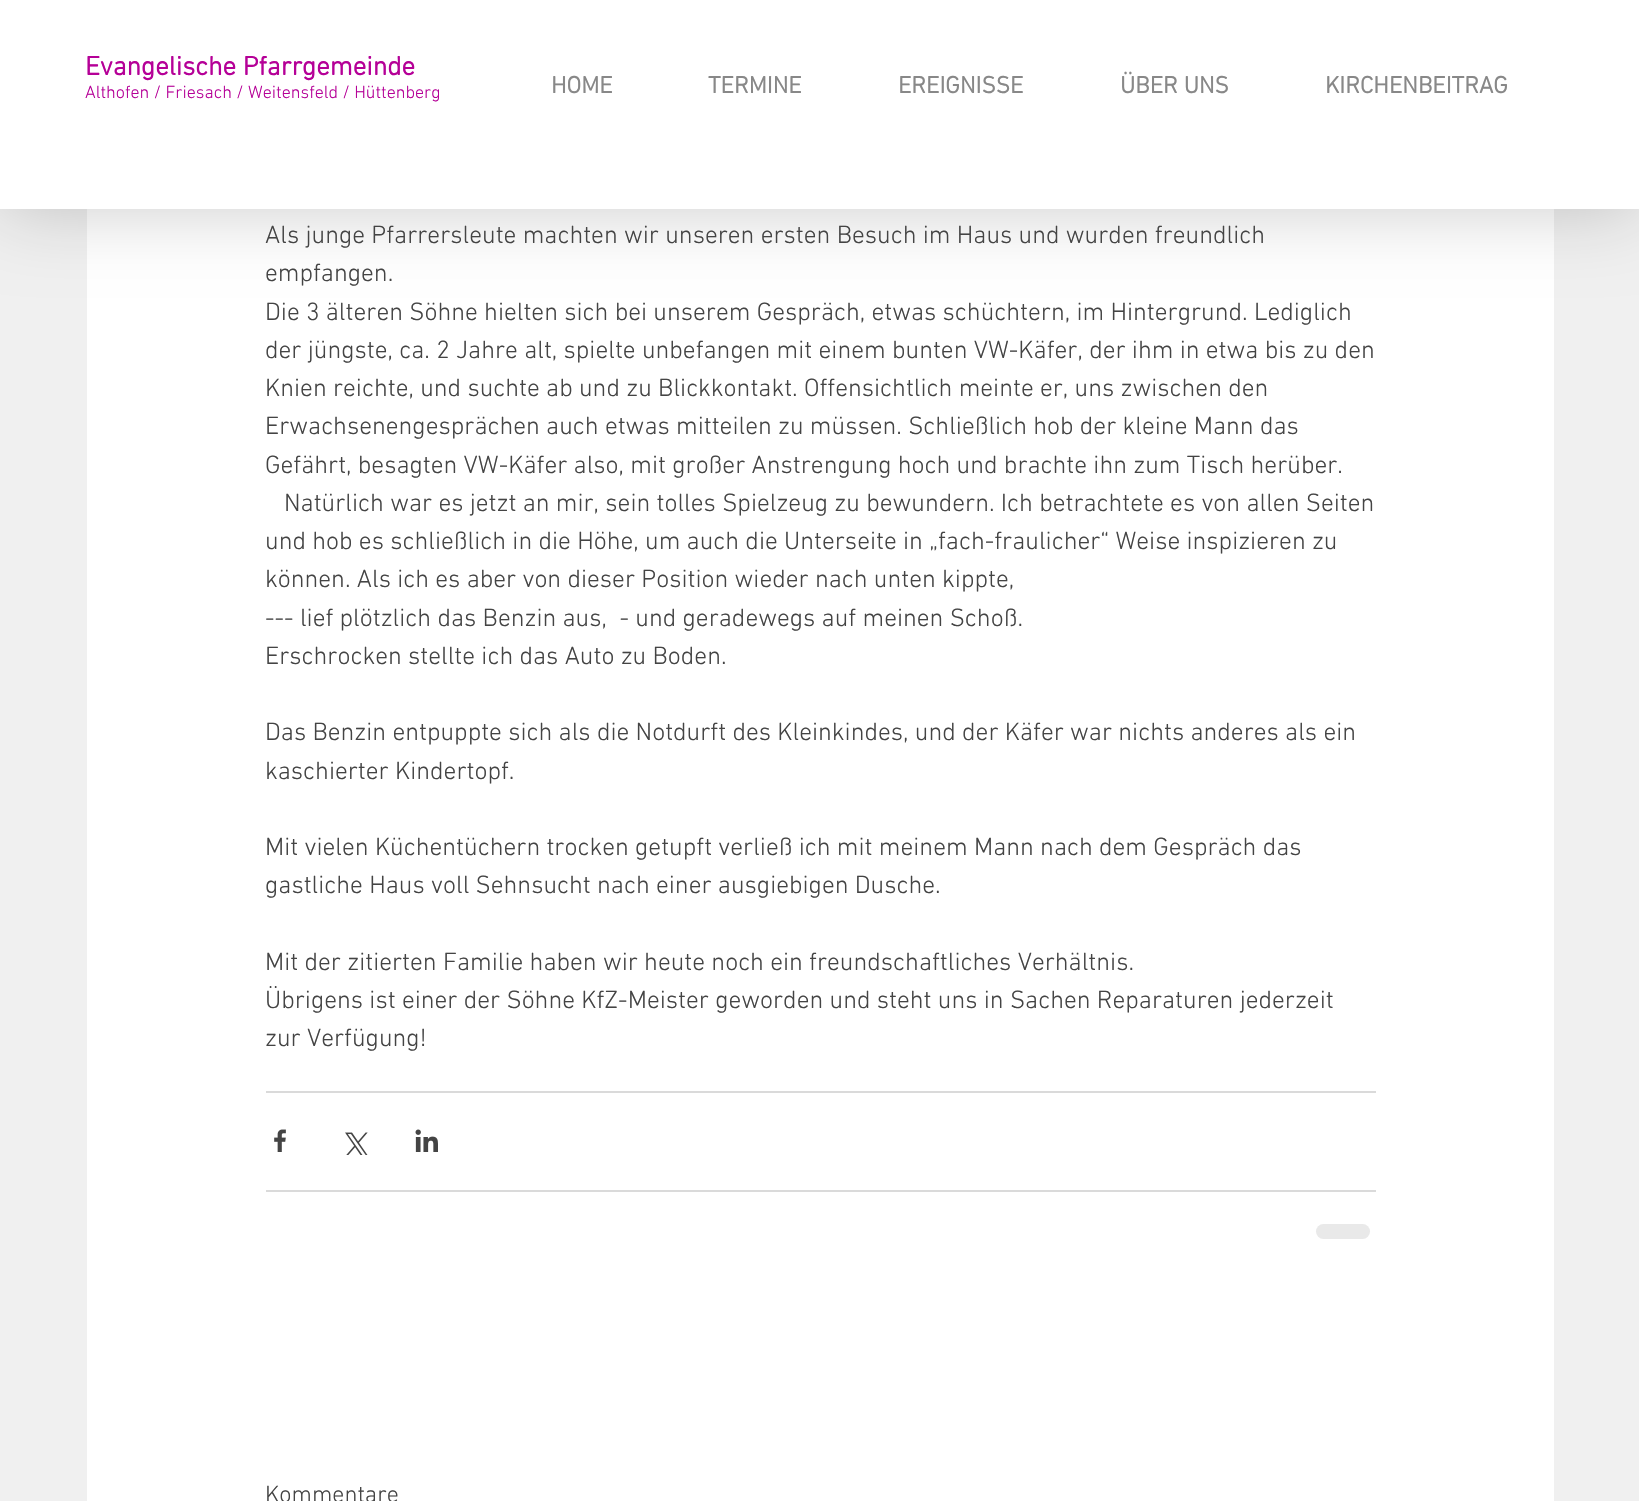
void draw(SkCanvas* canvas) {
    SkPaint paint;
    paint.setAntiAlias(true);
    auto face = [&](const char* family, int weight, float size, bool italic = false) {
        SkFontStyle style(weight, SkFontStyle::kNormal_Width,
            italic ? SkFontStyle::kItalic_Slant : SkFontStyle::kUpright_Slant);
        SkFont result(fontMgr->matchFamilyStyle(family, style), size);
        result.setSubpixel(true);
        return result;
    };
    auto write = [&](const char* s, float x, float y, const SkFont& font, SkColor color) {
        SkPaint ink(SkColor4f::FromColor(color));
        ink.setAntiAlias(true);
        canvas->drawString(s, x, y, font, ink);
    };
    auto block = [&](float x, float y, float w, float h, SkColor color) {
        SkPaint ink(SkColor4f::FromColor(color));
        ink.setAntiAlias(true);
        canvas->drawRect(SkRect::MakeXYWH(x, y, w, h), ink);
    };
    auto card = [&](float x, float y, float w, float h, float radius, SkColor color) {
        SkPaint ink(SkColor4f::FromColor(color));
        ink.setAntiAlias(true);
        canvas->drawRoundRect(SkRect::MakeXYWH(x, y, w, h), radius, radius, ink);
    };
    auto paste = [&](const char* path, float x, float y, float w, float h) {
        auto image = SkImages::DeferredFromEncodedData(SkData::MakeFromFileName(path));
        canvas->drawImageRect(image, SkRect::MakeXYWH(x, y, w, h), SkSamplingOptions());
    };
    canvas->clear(SkColorSetRGB(240, 240, 240));
    block(87, 209, 1467, 1292, SK_ColorWHITE);
    paint.setColor(SkColorSetARGB(51, 0, 0, 0));
    paint.setMaskFilter(SkMaskFilter::MakeBlur(kNormal_SkBlurStyle, 37.5f));
    canvas->drawRect(SkRect::MakeXYWH(0, 0, 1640, 209), paint);
    paint.setMaskFilter(nullptr);
    block(0, 0, 1639, 209, SK_ColorWHITE);
    auto kFont1 = face("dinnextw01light", 700, 27);
    write("Evangelische Pfarrgemeinde", 85, 75, kFont1, SkColorSetRGB(181, 0, 151));
    auto kFont2 = face("dinnextw01light", 300, 18);
    write("Althofen / Friesach / Weitensfeld / Hüttenberg", 85, 98, kFont2, SkColorSetRGB(181, 0, 151));
    auto kFont3 = face("dinnextw01light", 700, 24);
    write("HOME", 551, 93, kFont3, SkColorSetRGB(136, 136, 136));
    write("TERMINE", 708, 93, kFont3, SkColorSetRGB(136, 136, 136));
    write("EREIGNISSE", 898, 93, kFont3, SkColorSetRGB(136, 136, 136));
    write("ÜBER UNS", 1120, 93, kFont3, SkColorSetRGB(136, 136, 136));
    write("KIRCHENBEITRAG", 1325, 93, kFont3, SkColorSetRGB(136, 136, 136));
    auto kFont4 = face("dinnextw01light", 300, 25.5f);
    write("Als junge Pfarrersleute machten wir unseren ersten Besuch im Haus und wurden freundlich", 265, 243, kFont4, SkColorSetRGB(68, 68, 68));
    write("empfangen.", 265, 281, kFont4, SkColorSetRGB(68, 68, 68));
    write("Die 3 älteren Söhne hielten sich bei unserem Gespräch, etwas schüchtern, im Hintergrund. Lediglich", 265, 320, kFont4, SkColorSetRGB(68, 68, 68));
    write("der jüngste, ca. 2 Jahre alt, spielte unbefangen mit einem bunten VW-Käfer, der ihm in etwa bis zu den", 265, 358, kFont4, SkColorSetRGB(68, 68, 68));
    write("Knien reichte, und suchte ab und zu Blickkontakt. Offensichtlich meinte er, uns zwischen den", 265, 396, kFont4, SkColorSetRGB(68, 68, 68));
    write("Erwachsenengesprächen auch etwas mitteilen zu müssen. Schließlich hob der kleine Mann das", 265, 434, kFont4, SkColorSetRGB(68, 68, 68));
    write("Gefährt, besagten VW-Käfer also, mit großer Anstrengung hoch und brachte ihn zum Tisch herüber.", 265, 473, kFont4, SkColorSetRGB(68, 68, 68));
    write("Natürlich war es jetzt an mir, sein tolles Spielzeug zu bewundern. Ich betrachtete es von allen Seiten", 284, 511, kFont4, SkColorSetRGB(68, 68, 68));
    write("und hob es schließlich in die Höhe, um auch die Unterseite in „fach-fraulicher“ Weise inspizieren zu", 265, 549, kFont4, SkColorSetRGB(68, 68, 68));
    write("können. Als ich es aber von dieser Position wieder nach unten kippte,", 265, 587, kFont4, SkColorSetRGB(68, 68, 68));
    write("--- lief plötzlich das Benzin aus,  - und geradewegs auf meinen Schoß.", 265, 626, kFont4, SkColorSetRGB(68, 68, 68));
    write("Erschrocken stellte ich das Auto zu Boden.", 265, 664, kFont4, SkColorSetRGB(68, 68, 68));
    write("Das Benzin entpuppte sich als die Notdurft des Kleinkindes, und der Käfer war nichts anderes als ein", 265, 740, kFont4, SkColorSetRGB(68, 68, 68));
    write("kaschierter Kindertopf.", 265, 779, kFont4, SkColorSetRGB(68, 68, 68));
    write("Mit vielen Küchentüchern trocken getupft verließ ich mit meinem Mann nach dem Gespräch das", 265, 855, kFont4, SkColorSetRGB(68, 68, 68));
    write("gastliche Haus voll Sehnsucht nach einer ausgiebigen Dusche.", 265, 893, kFont4, SkColorSetRGB(68, 68, 68));
    write("Mit der zitierten Familie haben wir heute noch ein freundschaftliches Verhältnis.", 265, 970, kFont4, SkColorSetRGB(68, 68, 68));
    write("Übrigens ist einer der Söhne KfZ-Meister geworden und steht uns in Sachen Reparaturen jederzeit", 265, 1008, kFont4, SkColorSetRGB(68, 68, 68));
    write("zur Verfügung!", 265, 1046, kFont4, SkColorSetRGB(68, 68, 68));
    block(266, 1091, 1110, 2, SkColorSetRGB(218, 218, 218));
    paste("pic1.png", 274, 1129, 12, 23);
    paste("pic2.png", 345, 1132, 23, 23);
    paste("pic3.png", 415, 1129, 23, 23);
    block(266, 1190, 1110, 2, SkColorSetRGB(218, 218, 218));
    card(1316, 1224, 54, 15, 7.5f, SkColorSetRGB(233, 233, 233));
    auto kFont5 = face("dinnextw01light", 300, 24);
    write("Kommentare", 265, 1502, kFont5, SkColorSetRGB(68, 68, 68));
}
